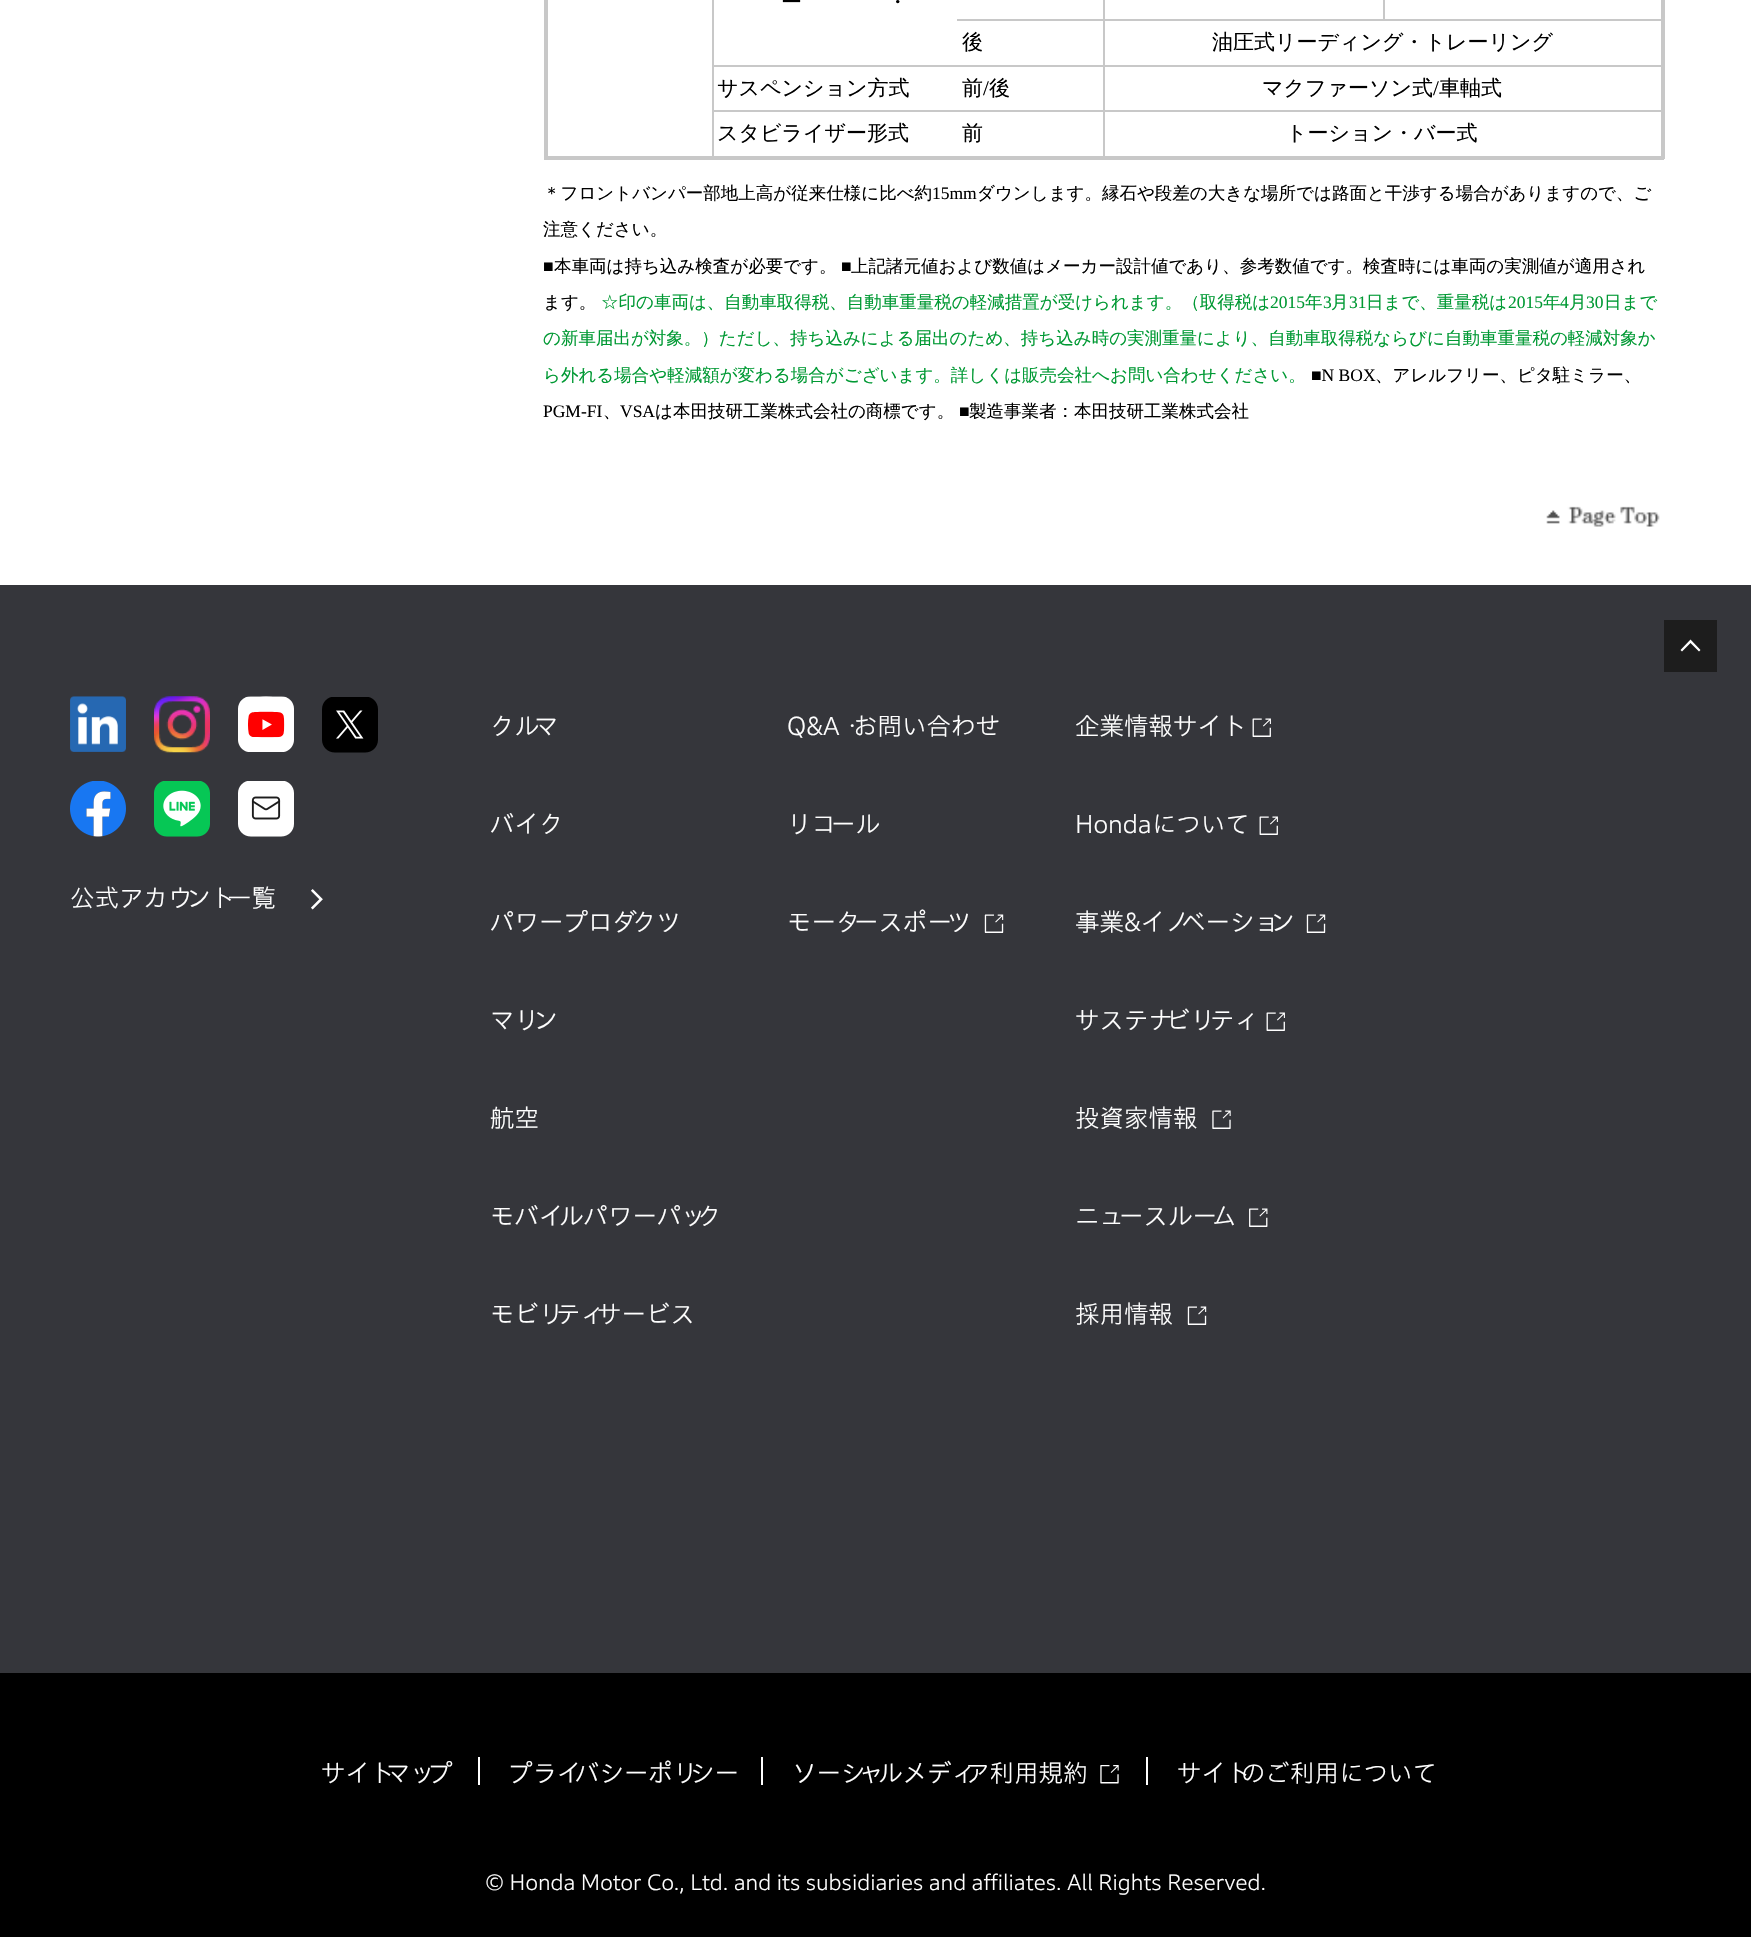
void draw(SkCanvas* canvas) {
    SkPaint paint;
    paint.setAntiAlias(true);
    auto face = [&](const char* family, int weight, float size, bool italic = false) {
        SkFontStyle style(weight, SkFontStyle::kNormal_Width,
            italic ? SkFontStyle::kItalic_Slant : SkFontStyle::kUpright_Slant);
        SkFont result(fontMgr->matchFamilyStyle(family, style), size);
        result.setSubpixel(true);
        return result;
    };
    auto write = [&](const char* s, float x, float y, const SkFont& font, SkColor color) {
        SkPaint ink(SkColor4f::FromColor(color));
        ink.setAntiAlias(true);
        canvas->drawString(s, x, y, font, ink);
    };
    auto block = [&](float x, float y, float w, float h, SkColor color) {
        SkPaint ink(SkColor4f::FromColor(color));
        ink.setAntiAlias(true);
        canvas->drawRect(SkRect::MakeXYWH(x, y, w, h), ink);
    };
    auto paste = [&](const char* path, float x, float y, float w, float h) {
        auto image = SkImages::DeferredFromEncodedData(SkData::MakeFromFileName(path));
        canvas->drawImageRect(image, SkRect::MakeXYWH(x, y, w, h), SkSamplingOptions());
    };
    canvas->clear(SK_ColorWHITE);
    block(1103, 19, 560, 2, SkColorSetRGB(200, 200, 200));
    block(1103, 65, 560, 2, SkColorSetRGB(200, 200, 200));
    block(1103, 110, 560, 2, SkColorSetRGB(200, 200, 200));
    block(1661, 0, 4, 159, SkColorSetRGB(200, 200, 200));
    block(1103, 110, 2, 48, SkColorSetRGB(200, 200, 200));
    block(712, 110, 392, 2, SkColorSetRGB(200, 200, 200));
    block(712, 110, 2, 48, SkColorSetRGB(200, 200, 200));
    block(544, 156, 1120, 4, SkColorSetRGB(200, 200, 200));
    block(544, 0, 4, 159, SkColorSetRGB(200, 200, 200));
    auto kFont1 = face("WenQuanYi Zen Hei", 500, 21);
    write("ー", 781, 9, kFont1, SK_ColorBLACK);
    write("・", 887, 9, kFont1, SK_ColorBLACK);
    block(1103, 65, 2, 47, SkColorSetRGB(200, 200, 200));
    block(712, 65, 392, 2, SkColorSetRGB(200, 200, 200));
    block(1103, 19, 2, 48, SkColorSetRGB(200, 200, 200));
    block(957, 19, 147, 2, SkColorSetRGB(200, 200, 200));
    block(1103, 0, 2, 21, SkColorSetRGB(200, 200, 200));
    block(1383, 0, 2, 21, SkColorSetRGB(200, 200, 200));
    write("後", 962, 49, kFont1, SK_ColorBLACK);
    write("油圧式リーディング・トレーリング", 1212, 49, kFont1, SK_ColorBLACK);
    block(712, 0, 2, 112, SkColorSetRGB(200, 200, 200));
    write("サスペンション方式", 717, 95, kFont1, SK_ColorBLACK);
    write("前", 962, 95, kFont1, SK_ColorBLACK);
    auto kFont2 = face("Liberation Serif", 400, 21);
    write("/", 983, 95, kFont2, SK_ColorBLACK);
    write("後", 989, 95, kFont1, SK_ColorBLACK);
    write("マクファーソン式", 1262, 95, kFont1, SK_ColorBLACK);
    write("/", 1433, 95, kFont2, SK_ColorBLACK);
    write("車軸式", 1439, 95, kFont1, SK_ColorBLACK);
    write("スタビライザー形式", 717, 140, kFont1, SK_ColorBLACK);
    write("前", 962, 140, kFont1, SK_ColorBLACK);
    write("トーション・バー式", 1286, 140, kFont1, SK_ColorBLACK);
    auto kFont3 = face("WenQuanYi Zen Hei", 500, 17.5f);
    write("＊フロントバンパー部地上高が従来仕様に比べ約", 543, 199, kFont3, SK_ColorBLACK);
    auto kFont4 = face("Liberation Serif", 400, 17.5f);
    write("15mm", 932, 199, kFont4, SK_ColorBLACK);
    write("ダウンします。縁石や段差の大きな場所では路面と干渉する場合がありますので、ご", 977, 199, kFont3, SK_ColorBLACK);
    write("注意ください。", 543, 235, kFont3, SK_ColorBLACK);
    write("■", 543, 272, kFont4, SK_ColorBLACK);
    write("本車両は持ち込み検査が必要です。", 554, 272, kFont3, SK_ColorBLACK);
    write("■", 841, 272, kFont4, SK_ColorBLACK);
    write("上記諸元値および数値はメーカー設計値であり、参考数値です。検査時には車両の実測値が適用され", 851, 272, kFont3, SK_ColorBLACK);
    write("ます。", 543, 308, kFont3, SK_ColorBLACK);
    write("☆印の車両は、自動車取得税、自動車重量税の軽減措置が受けられます。（取得税は", 601, 308, kFont3, SkColorSetRGB(0, 153, 51));
    write("2015", 1270, 308, kFont4, SkColorSetRGB(0, 153, 51));
    write("年", 1305, 308, kFont3, SkColorSetRGB(0, 153, 51));
    write("3", 1323, 308, kFont4, SkColorSetRGB(0, 153, 51));
    write("月", 1331, 308, kFont3, SkColorSetRGB(0, 153, 51));
    write("31", 1349, 308, kFont4, SkColorSetRGB(0, 153, 51));
    write("日まで、重量税は", 1366, 308, kFont3, SkColorSetRGB(0, 153, 51));
    write("2015", 1508, 308, kFont4, SkColorSetRGB(0, 153, 51));
    write("年", 1543, 308, kFont3, SkColorSetRGB(0, 153, 51));
    write("4", 1560, 308, kFont4, SkColorSetRGB(0, 153, 51));
    write("月", 1569, 308, kFont3, SkColorSetRGB(0, 153, 51));
    write("30", 1586, 308, kFont4, SkColorSetRGB(0, 153, 51));
    write("日まで", 1604, 308, kFont3, SkColorSetRGB(0, 153, 51));
    write("の新車届出が対象。）ただし、持ち込みによる届出のため、持ち込み時の実測重量により、自動車取得税ならびに自動車重量税の軽減対象か", 543, 344, kFont3, SkColorSetRGB(0, 153, 51));
    write("ら外れる場合や軽減額が変わる場合がございます。詳しくは販売会社へお問い合わせください。", 543, 381, kFont3, SkColorSetRGB(0, 153, 51));
    write("■N BOX", 1311, 381, kFont4, SK_ColorBLACK);
    write("、アレルフリー、ピタ駐ミラー、", 1375, 381, kFont3, SK_ColorBLACK);
    write("PGM-FI", 543, 417, kFont4, SK_ColorBLACK);
    write("VSA", 620, 417, kFont4, SK_ColorBLACK);
    write("は本田技研工業株式会社の商標です。", 655, 417, kFont3, SK_ColorBLACK);
    write("■", 959, 417, kFont4, SK_ColorBLACK);
    write("製造事業者：本田技研工業株式会社", 969, 417, kFont3, SK_ColorBLACK);
    write("、", 603, 417, kFont3, SK_ColorBLACK);
    paste("pic1.png", 1546, 506, 114, 21);
    block(0, 585, 1751, 1088, SkColorSetRGB(53, 54, 59));
    block(1664, 620, 53, 52, SkColorSetRGB(29, 29, 29));
    paint.setColor(SK_ColorWHITE);
    canvas->drawPath(SkPathBuilder().moveTo(1700.5f, 650).lineTo(1699, 651.5f).lineTo(1690.5f, 643).lineTo(1682, 651.5f).lineTo(1680.5f, 650).lineTo(1690.5f, 639.5f).close().detach(), paint);
    paste("pic2.png", 70, 696, 56, 56);
    paste("pic3.png", 154, 696, 56, 57);
    paste("pic4.png", 238, 696, 56, 56);
    paste("pic5.png", 322, 697, 56, 56);
    paste("pic6.png", 70, 781, 56, 56);
    paste("pic7.png", 154, 781, 56, 56);
    paste("pic8.png", 238, 781, 56, 56);
    auto kFont5 = face("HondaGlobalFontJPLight", 300, 24.5f);
    write("公式アカウ", 70, 907, kFont5, SK_ColorWHITE);
    write("ント", 186, 907, kFont5, SK_ColorWHITE);
    write("一覧", 227, 907, kFont5, SK_ColorWHITE);
    paste("pic9.png", 311, 889, 12, 21);
    write("クル", 490, 735, kFont5, SK_ColorWHITE);
    write("マ", 534, 735, kFont5, SK_ColorWHITE);
    write("バイク", 490, 833, kFont5, SK_ColorWHITE);
    write("パワープロダ", 490, 931, kFont5, SK_ColorWHITE);
    write("クツ", 632, 931, kFont5, SK_ColorWHITE);
    write("マリ", 490, 1029, kFont5, SK_ColorWHITE);
    write("ン", 533, 1029, kFont5, SK_ColorWHITE);
    write("航空", 490, 1127, kFont5, SK_ColorWHITE);
    write("モバイ", 490, 1225, kFont5, SK_ColorWHITE);
    write("ルパワーパッ", 559, 1225, kFont5, SK_ColorWHITE);
    write("ク", 697, 1225, kFont5, SK_ColorWHITE);
    write("モビリ", 490, 1323, kFont5, SK_ColorWHITE);
    write("ティ", 556, 1323, kFont5, SK_ColorWHITE);
    write("サービス", 597, 1323, kFont5, SK_ColorWHITE);
    write("Q&A・", 787, 735, kFont5, SK_ColorWHITE);
    write("お問い合わせ", 853, 735, kFont5, SK_ColorWHITE);
    write("リコ", 787, 833, kFont5, SK_ColorWHITE);
    write("ール", 831, 833, kFont5, SK_ColorWHITE);
    write("モータ", 787, 931, kFont5, SK_ColorWHITE);
    write("ースポー", 854, 931, kFont5, SK_ColorWHITE);
    write("ツ", 947, 931, kFont5, SK_ColorWHITE);
    paste("pic10.png", 984, 914, 20, 19);
    write("企業情報サイト", 1075, 735, kFont5, SK_ColorWHITE);
    paste("pic11.png", 1252, 718, 19, 19);
    write("Hondaについて", 1075, 833, kFont5, SK_ColorWHITE);
    paste("pic12.png", 1259, 816, 19, 19);
    write("事業&イノ", 1075, 931, kFont5, SK_ColorWHITE);
    write("ベーショ", 1181, 931, kFont5, SK_ColorWHITE);
    write("ン", 1270, 931, kFont5, SK_ColorWHITE);
    paste("pic10.png", 1306, 914, 20, 19);
    write("サステナ", 1075, 1029, kFont5, SK_ColorWHITE);
    write("ビリ", 1166, 1029, kFont5, SK_ColorWHITE);
    write("ティ", 1210, 1029, kFont5, SK_ColorWHITE);
    paste("pic13.png", 1266, 1012, 19, 19);
    write("投資家情報", 1075, 1127, kFont5, SK_ColorWHITE);
    paste("pic14.png", 1212, 1110, 19, 19);
    write("ニュ", 1075, 1225, kFont5, SK_ColorWHITE);
    write("ースルー", 1119, 1225, kFont5, SK_ColorWHITE);
    write("ム", 1212, 1225, kFont5, SK_ColorWHITE);
    paste("pic15.png", 1249, 1208, 19, 19);
    write("採用情報", 1075, 1323, kFont5, SK_ColorWHITE);
    paste("pic10.png", 1187, 1306, 20, 19);
    block(0, 1673, 1751, 264, SK_ColorBLACK);
    write("サイト", 321, 1782, kFont5, SK_ColorWHITE);
    write("マッ", 386, 1782, kFont5, SK_ColorWHITE);
    write("プ", 428, 1782, kFont5, SK_ColorWHITE);
    block(478, 1757, 2, 28, SK_ColorWHITE);
    write("プライ", 508, 1782, kFont5, SK_ColorWHITE);
    write("バシーポリ", 575, 1782, kFont5, SK_ColorWHITE);
    write("シー", 690, 1782, kFont5, SK_ColorWHITE);
    block(761, 1757, 2, 28, SK_ColorWHITE);
    write("ソーシ", 792, 1782, kFont5, SK_ColorWHITE);
    write("ャ", 859, 1782, kFont5, SK_ColorWHITE);
    write("ルメディ", 878, 1782, kFont5, SK_ColorWHITE);
    write("ア利用規約", 965, 1782, kFont5, SK_ColorWHITE);
    paste("pic16.png", 1100, 1765, 19, 19);
    block(1146, 1757, 2, 28, SK_ColorWHITE);
    write("サイト", 1177, 1782, kFont5, SK_ColorWHITE);
    write("のご利用について", 1241, 1782, kFont5, SK_ColorWHITE);
    auto kFont6 = face("HondaGlobalFontJPLight", 300, 21);
    write("© Honda Motor Co., Ltd. and its subsidiaries and affiliates. All Rights Reserved.", 485, 1890, kFont6, SK_ColorWHITE);
}
